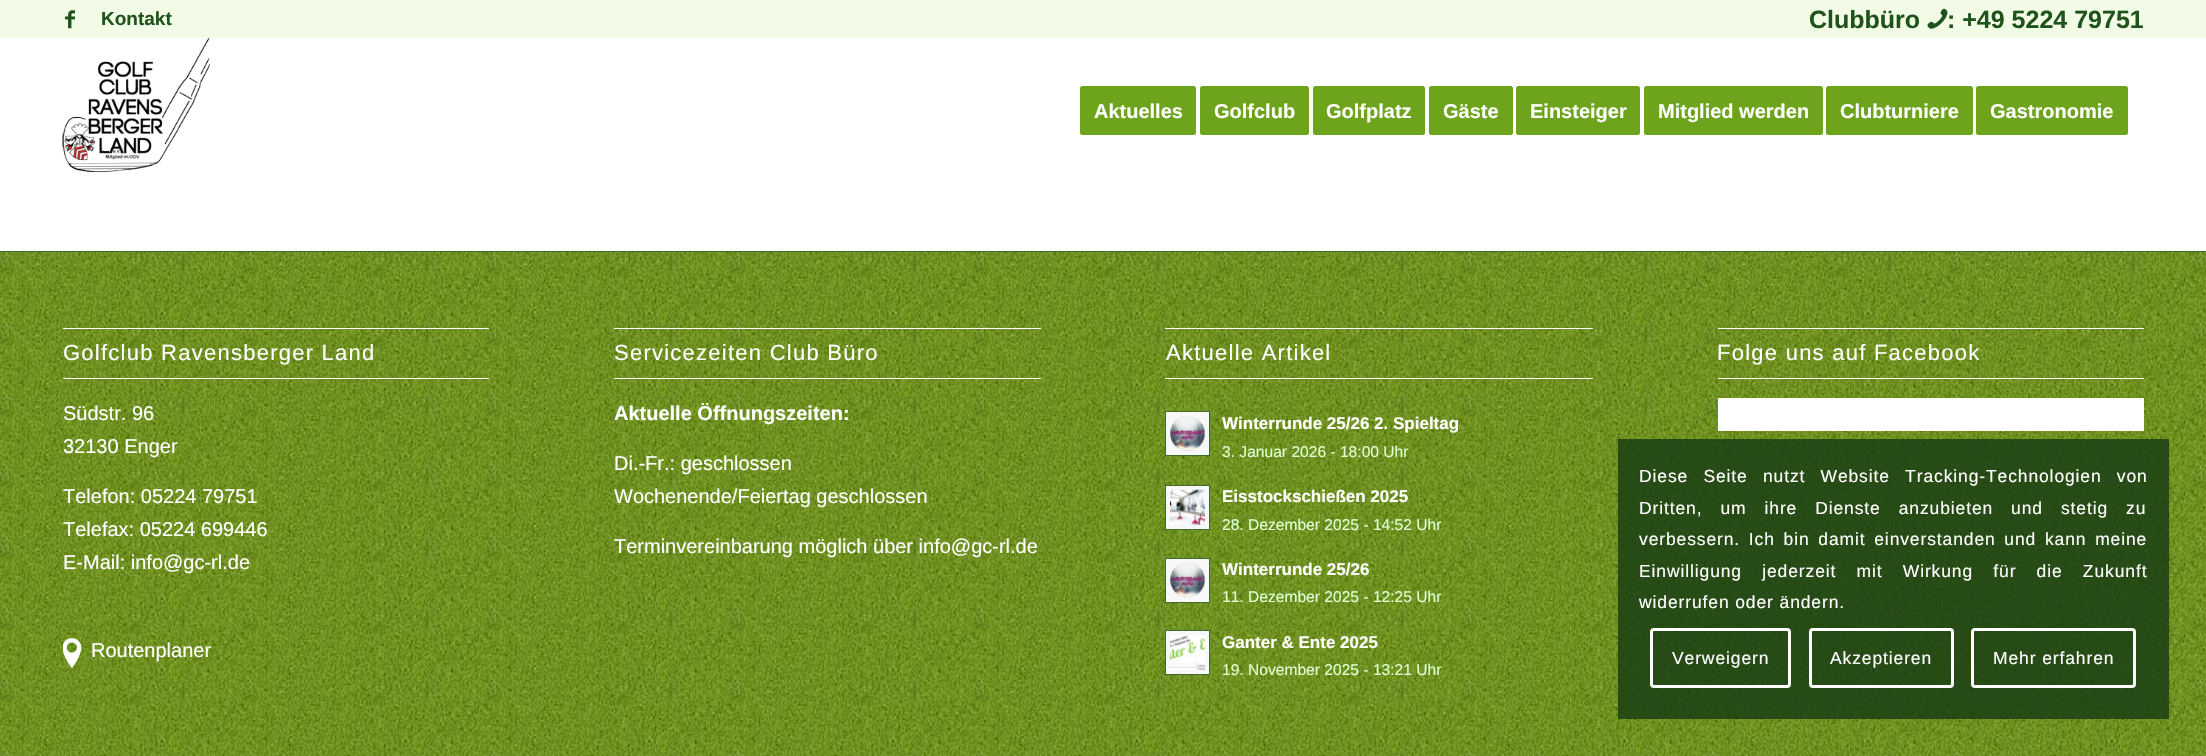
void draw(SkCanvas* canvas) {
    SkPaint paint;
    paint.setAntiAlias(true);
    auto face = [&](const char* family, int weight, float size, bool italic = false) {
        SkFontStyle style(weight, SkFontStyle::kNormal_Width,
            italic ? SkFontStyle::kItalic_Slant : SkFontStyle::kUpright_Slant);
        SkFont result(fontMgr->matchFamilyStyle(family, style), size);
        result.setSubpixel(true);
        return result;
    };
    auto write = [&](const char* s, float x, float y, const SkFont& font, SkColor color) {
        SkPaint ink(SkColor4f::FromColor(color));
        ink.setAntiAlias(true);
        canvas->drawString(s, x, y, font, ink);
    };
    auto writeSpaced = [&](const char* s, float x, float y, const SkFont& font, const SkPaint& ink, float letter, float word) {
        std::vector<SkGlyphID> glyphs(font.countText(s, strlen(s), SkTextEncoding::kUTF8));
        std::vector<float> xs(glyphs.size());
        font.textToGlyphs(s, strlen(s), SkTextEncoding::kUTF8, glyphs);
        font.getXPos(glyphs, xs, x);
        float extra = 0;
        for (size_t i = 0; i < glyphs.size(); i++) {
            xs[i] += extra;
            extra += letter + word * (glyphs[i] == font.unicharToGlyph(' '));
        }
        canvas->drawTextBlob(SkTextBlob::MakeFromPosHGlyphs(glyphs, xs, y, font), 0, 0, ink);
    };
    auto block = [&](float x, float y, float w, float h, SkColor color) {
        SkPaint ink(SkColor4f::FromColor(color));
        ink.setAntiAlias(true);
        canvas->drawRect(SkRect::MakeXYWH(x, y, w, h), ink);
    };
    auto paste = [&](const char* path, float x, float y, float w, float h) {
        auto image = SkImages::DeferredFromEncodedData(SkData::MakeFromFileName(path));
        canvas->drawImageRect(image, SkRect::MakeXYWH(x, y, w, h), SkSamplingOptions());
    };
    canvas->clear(SK_ColorWHITE);
    block(0, 0, 2206, 38, SkColorSetRGB(242, 251, 230));
    paste("pic1.png", 65, 10, 10, 19);
    auto kFont1 = face("Liberation Sans", 700, 19);
    write("Kontakt", 101, 25, kFont1, SkColorSetRGB(31, 83, 28));
    auto kFont2 = face("Liberation Sans", 700, 25);
    write("Clubbüro", 1809, 28, kFont2, SkColorSetRGB(31, 83, 28));
    paste("pic2.png", 1927, 8, 21, 21);
    write(": +49 5224 79751", 1947, 28, kFont2, SkColorSetRGB(31, 83, 28));
    paste("pic3.png", 62, 38, 148, 135);
    paint.setColor(SkColorSetRGB(109, 164, 27));
    canvas->drawRoundRect(SkRect::MakeXYWH(1081.5f, 87.5f, 113, 46), 1, 1, paint);
    paint.setStyle(SkPaint::kStroke_Style);
    paint.setStrokeWidth(3);
    canvas->drawRoundRect(SkRect::MakeXYWH(1081.5f, 87.5f, 113, 46), 1, 1, paint);
    auto kFont3 = face("Liberation Sans", 700, 20);
    write("Aktuelles", 1094, 118, kFont3, SK_ColorWHITE);
    paint.setStyle(SkPaint::kFill_Style);
    canvas->drawRoundRect(SkRect::MakeXYWH(1201.5f, 87.5f, 106, 46), 1, 1, paint);
    paint.setStyle(SkPaint::kStroke_Style);
    canvas->drawRoundRect(SkRect::MakeXYWH(1201.5f, 87.5f, 106, 46), 1, 1, paint);
    write("Golfclub", 1214, 118, kFont3, SK_ColorWHITE);
    paint.setStyle(SkPaint::kFill_Style);
    canvas->drawRoundRect(SkRect::MakeXYWH(1314.5f, 87.5f, 109, 46), 1, 1, paint);
    paint.setStyle(SkPaint::kStroke_Style);
    canvas->drawRoundRect(SkRect::MakeXYWH(1314.5f, 87.5f, 109, 46), 1, 1, paint);
    write("Golfplatz", 1326, 118, kFont3, SK_ColorWHITE);
    paint.setStyle(SkPaint::kFill_Style);
    canvas->drawRoundRect(SkRect::MakeXYWH(1430.5f, 87.5f, 81, 46), 1, 1, paint);
    paint.setStyle(SkPaint::kStroke_Style);
    canvas->drawRoundRect(SkRect::MakeXYWH(1430.5f, 87.5f, 81, 46), 1, 1, paint);
    write("Gäste", 1443, 118, kFont3, SK_ColorWHITE);
    paint.setStyle(SkPaint::kFill_Style);
    canvas->drawRoundRect(SkRect::MakeXYWH(1517.5f, 87.5f, 121, 46), 1, 1, paint);
    paint.setStyle(SkPaint::kStroke_Style);
    canvas->drawRoundRect(SkRect::MakeXYWH(1517.5f, 87.5f, 121, 46), 1, 1, paint);
    write("Einsteiger", 1530, 118, kFont3, SK_ColorWHITE);
    paint.setStyle(SkPaint::kFill_Style);
    canvas->drawRoundRect(SkRect::MakeXYWH(1645.5f, 87.5f, 176, 46), 1, 1, paint);
    paint.setStyle(SkPaint::kStroke_Style);
    canvas->drawRoundRect(SkRect::MakeXYWH(1645.5f, 87.5f, 176, 46), 1, 1, paint);
    write("Mitglied werden", 1658, 118, kFont3, SK_ColorWHITE);
    paint.setStyle(SkPaint::kFill_Style);
    canvas->drawRoundRect(SkRect::MakeXYWH(1827.5f, 87.5f, 144, 46), 1, 1, paint);
    paint.setStyle(SkPaint::kStroke_Style);
    canvas->drawRoundRect(SkRect::MakeXYWH(1827.5f, 87.5f, 144, 46), 1, 1, paint);
    write("Clubturniere", 1840, 118, kFont3, SK_ColorWHITE);
    paint.setStyle(SkPaint::kFill_Style);
    canvas->drawRoundRect(SkRect::MakeXYWH(1977.5f, 87.5f, 149, 46), 1, 1, paint);
    paint.setStyle(SkPaint::kStroke_Style);
    canvas->drawRoundRect(SkRect::MakeXYWH(1977.5f, 87.5f, 149, 46), 1, 1, paint);
    write("Gastronomie", 1990, 118, kFont3, SK_ColorWHITE);
    paste("pic4.png", 0, 252, 2206, 504);
    block(0, 251, 2206, 1, SkColorSetRGB(63, 109, 41));
    block(63, 328, 426, 1, SK_ColorWHITE);
    block(63, 378, 426, 1, SK_ColorWHITE);
    auto kFont4 = face("Liberation Sans", 400, 22);
    paint.setStyle(SkPaint::kFill_Style);
    paint.setColor(SK_ColorWHITE);
    writeSpaced("Golfclub Ravensberger Land", 63, 360, kFont4, paint, 1.25f, 0);
    auto kFont5 = face("Liberation Sans", 400, 20);
    write("Südstr. 96", 63, 420, kFont5, SK_ColorWHITE);
    write("32130 Enger", 63, 453, kFont5, SK_ColorWHITE);
    write("Telefon: 05224 79751", 63, 503, kFont5, SK_ColorWHITE);
    write("Telefax: 05224 699446", 63, 536, kFont5, SK_ColorWHITE);
    write("E-Mail: info@gc-rl.de", 63, 569, kFont5, SK_ColorWHITE);
    paste("pic5.png", 63, 638, 19, 30);
    write("Routenplaner", 91, 657, kFont5, SK_ColorWHITE);
    block(614, 328, 427, 1, SK_ColorWHITE);
    block(614, 378, 427, 1, SK_ColorWHITE);
    writeSpaced("Servicezeiten Club Büro", 614, 360, kFont4, paint, 1.25f, 0);
    write("Aktuelle Öffnungszeiten:", 614, 420, kFont3, SK_ColorWHITE);
    write("Di.-Fr.: geschlossen", 614, 470, kFont5, SK_ColorWHITE);
    write("Wochenende/Feiertag geschlossen", 614, 503, kFont5, SK_ColorWHITE);
    write("Terminvereinbarung möglich über info@gc-rl.de", 614, 553, kFont5, SK_ColorWHITE);
    block(1165, 328, 428, 1, SK_ColorWHITE);
    block(1165, 378, 428, 1, SK_ColorWHITE);
    writeSpaced("Aktuelle Artikel", 1166, 360, kFont4, paint, 1.25f, 0);
    paint.setColor(SkColorSetRGB(248, 248, 248));
    canvas->drawRect(SkRect::MakeXYWH(1165.5f, 411.5f, 44, 44), paint);
    paint.setStyle(SkPaint::kStroke_Style);
    paint.setStrokeWidth(1);
    paint.setColor(SkColorSetRGB(63, 109, 41));
    canvas->drawRect(SkRect::MakeXYWH(1165.5f, 411.5f, 44, 44), paint);
    paste("pic6.png", 1170, 416, 35, 35);
    auto kFont6 = face("Liberation Sans", 700, 17);
    write("Winterrunde 25/26 2. Spieltag", 1222, 429, kFont6, SK_ColorWHITE);
    auto kFont7 = face("Liberation Sans", 400, 15.6f);
    write("3. Januar 2026 - 18:00 Uhr", 1222, 457, kFont7, SkColorSetRGB(221, 255, 209));
    paint.setStyle(SkPaint::kFill_Style);
    paint.setColor(SkColorSetRGB(248, 248, 248));
    canvas->drawRect(SkRect::MakeXYWH(1165.5f, 485.5f, 44, 44), paint);
    paint.setStyle(SkPaint::kStroke_Style);
    paint.setColor(SkColorSetRGB(63, 109, 41));
    canvas->drawRect(SkRect::MakeXYWH(1165.5f, 485.5f, 44, 44), paint);
    paste("pic7.png", 1170, 489, 35, 36);
    write("Eisstockschießen 2025", 1222, 502, kFont6, SK_ColorWHITE);
    write("28. Dezember 2025 - 14:52 Uhr", 1222, 530, kFont7, SkColorSetRGB(221, 255, 209));
    paint.setStyle(SkPaint::kFill_Style);
    paint.setColor(SkColorSetRGB(248, 248, 248));
    canvas->drawRect(SkRect::MakeXYWH(1165.5f, 558.5f, 44, 44), paint);
    paint.setStyle(SkPaint::kStroke_Style);
    paint.setColor(SkColorSetRGB(63, 109, 41));
    canvas->drawRect(SkRect::MakeXYWH(1165.5f, 558.5f, 44, 44), paint);
    paste("pic8.png", 1170, 562, 35, 36);
    write("Winterrunde 25/26", 1222, 575, kFont6, SK_ColorWHITE);
    write("11. Dezember 2025 - 12:25 Uhr", 1222, 602, kFont7, SkColorSetRGB(221, 255, 209));
    paint.setStyle(SkPaint::kFill_Style);
    paint.setColor(SkColorSetRGB(248, 248, 248));
    canvas->drawRect(SkRect::MakeXYWH(1165.5f, 630.5f, 44, 44), paint);
    paint.setStyle(SkPaint::kStroke_Style);
    paint.setColor(SkColorSetRGB(63, 109, 41));
    canvas->drawRect(SkRect::MakeXYWH(1165.5f, 630.5f, 44, 44), paint);
    paste("pic9.png", 1170, 635, 35, 35);
    write("Ganter & Ente 2025", 1222, 648, kFont6, SK_ColorWHITE);
    write("19. November 2025 - 13:21 Uhr", 1222, 675, kFont7, SkColorSetRGB(221, 255, 209));
    block(1718, 328, 426, 1, SK_ColorWHITE);
    block(1718, 378, 426, 1, SK_ColorWHITE);
    paint.setStyle(SkPaint::kFill_Style);
    paint.setColor(SK_ColorWHITE);
    writeSpaced("Folge uns auf Facebook", 1717, 360, kFont4, paint, 1.25f, 0);
    block(1718, 398, 426, 33, SK_ColorWHITE);
    block(1618, 439, 551, 280, SkColorSetARGB(204, 21, 57, 19));
    auto kFont8 = face("Liberation Sans", 400, 17.5f);
    writeSpaced("Diese Seite nutzt Website Tracking-Technologien von", 1639, 482, kFont8, paint, 0.88f, 9.5f);
    writeSpaced("Dritten, um ihre Dienste anzubieten und stetig zu", 1639, 514, kFont8, paint, 0.88f, 12.25f);
    writeSpaced("verbessern. Ich bin damit einverstanden und kann meine", 1639, 545, kFont8, paint, 0.88f, 3);
    writeSpaced("Einwilligung jederzeit mit Wirkung für die Zukunft", 1639, 577, kFont8, paint, 0.88f, 14.5f);
    writeSpaced("widerrufen oder ändern.", 1639, 608, kFont8, paint, 0.88f, 0);
    paint.setStyle(SkPaint::kStroke_Style);
    paint.setStrokeWidth(3);
    canvas->drawRoundRect(SkRect::MakeXYWH(1651.5f, 629.5f, 138, 57), 2.5f, 2.5f, paint);
    paint.setStyle(SkPaint::kFill_Style);
    writeSpaced("Verweigern", 1672, 664, kFont8, paint, 0.88f, 0);
    paint.setStyle(SkPaint::kStroke_Style);
    canvas->drawRoundRect(SkRect::MakeXYWH(1810.5f, 629.5f, 142, 57), 2.5f, 2.5f, paint);
    paint.setStyle(SkPaint::kFill_Style);
    writeSpaced("Akzeptieren", 1830, 664, kFont8, paint, 0.88f, 0);
    paint.setStyle(SkPaint::kStroke_Style);
    canvas->drawRoundRect(SkRect::MakeXYWH(1972.5f, 629.5f, 162, 57), 2.5f, 2.5f, paint);
    paint.setStyle(SkPaint::kFill_Style);
    writeSpaced("Mehr erfahren", 1993, 664, kFont8, paint, 0.88f, 0);
}
